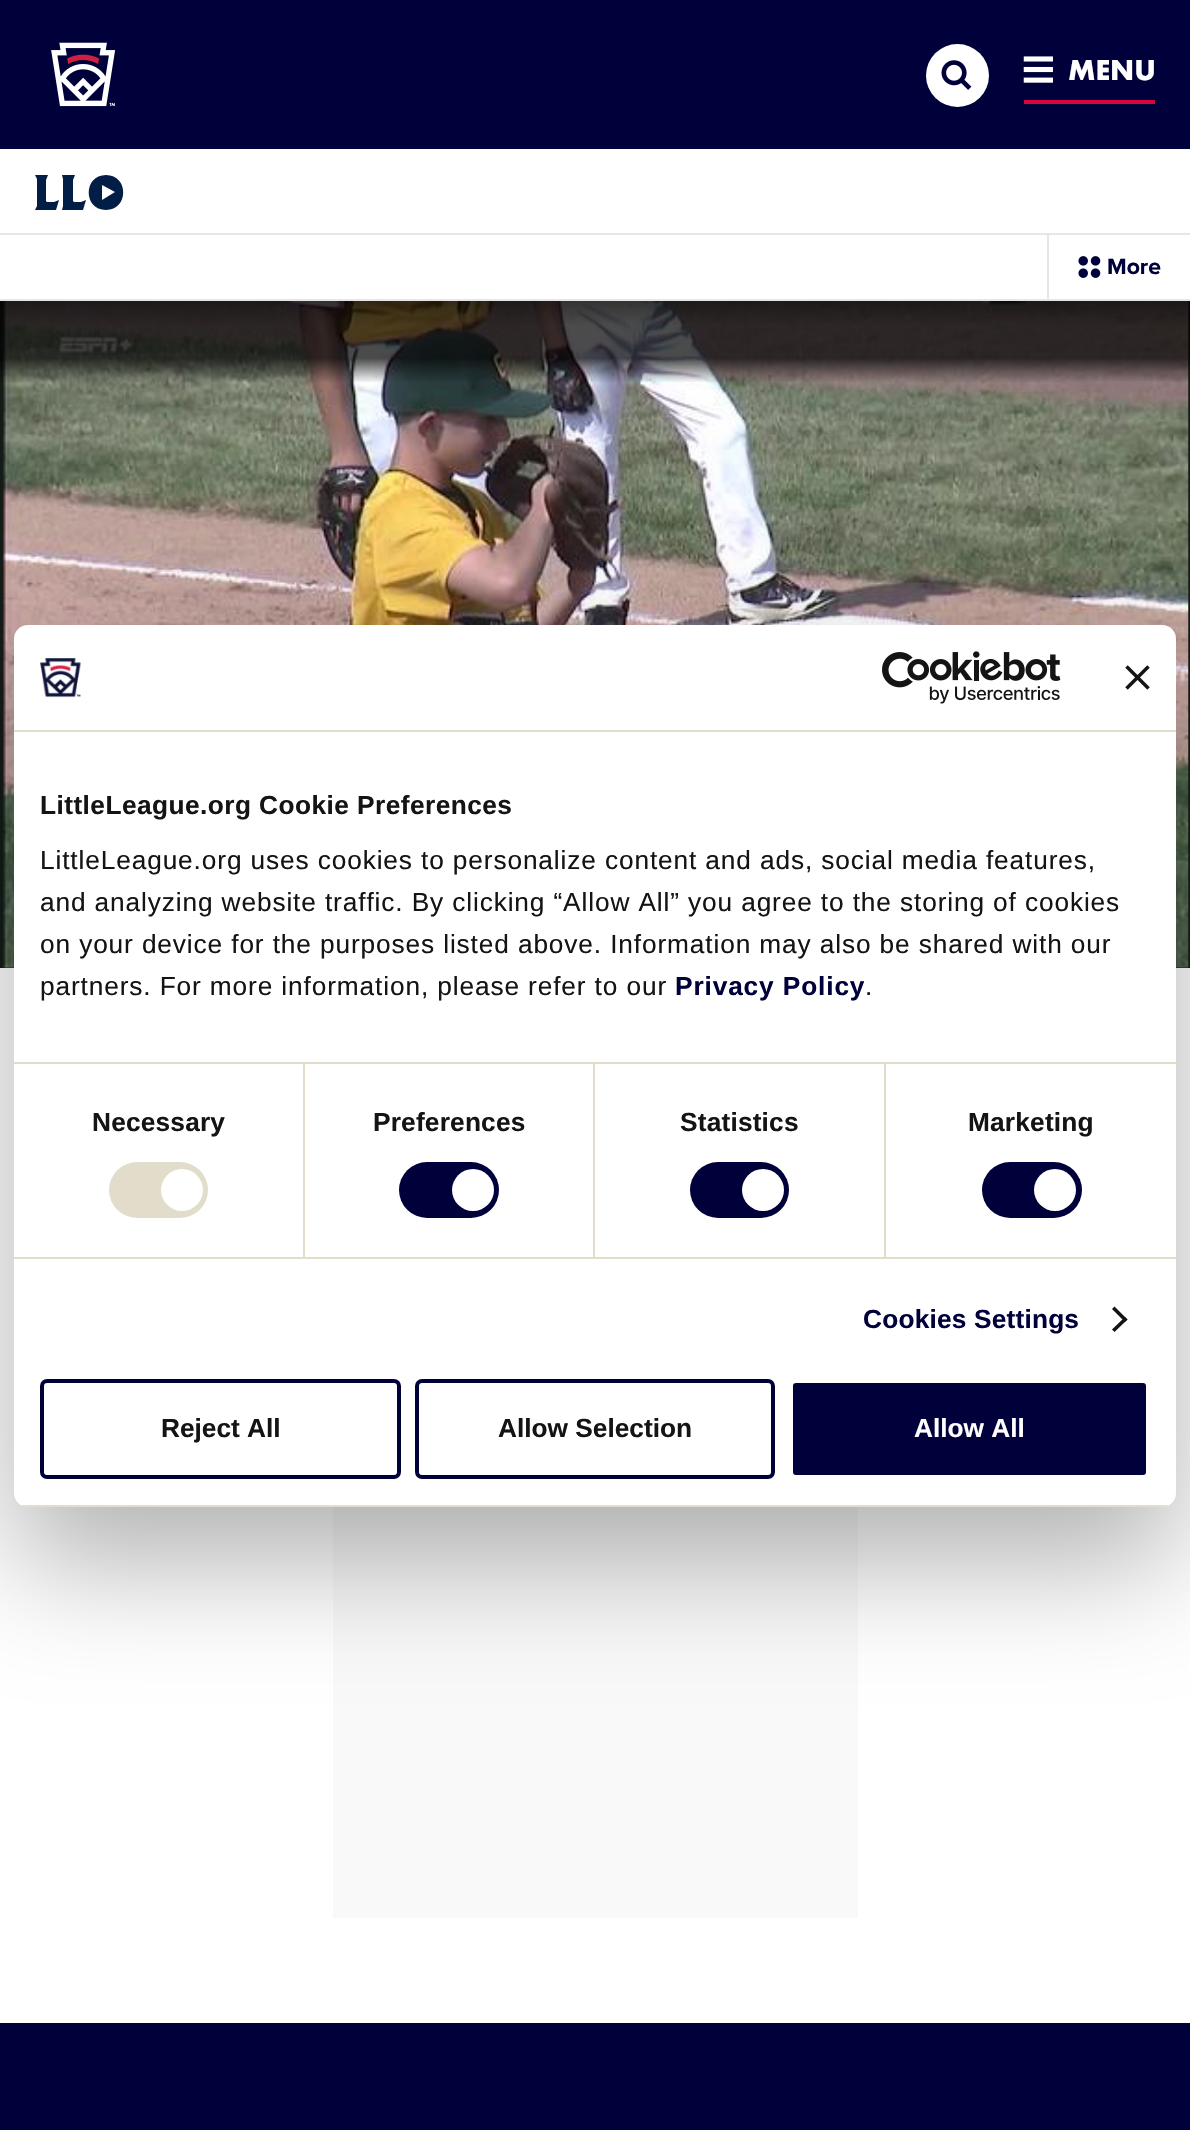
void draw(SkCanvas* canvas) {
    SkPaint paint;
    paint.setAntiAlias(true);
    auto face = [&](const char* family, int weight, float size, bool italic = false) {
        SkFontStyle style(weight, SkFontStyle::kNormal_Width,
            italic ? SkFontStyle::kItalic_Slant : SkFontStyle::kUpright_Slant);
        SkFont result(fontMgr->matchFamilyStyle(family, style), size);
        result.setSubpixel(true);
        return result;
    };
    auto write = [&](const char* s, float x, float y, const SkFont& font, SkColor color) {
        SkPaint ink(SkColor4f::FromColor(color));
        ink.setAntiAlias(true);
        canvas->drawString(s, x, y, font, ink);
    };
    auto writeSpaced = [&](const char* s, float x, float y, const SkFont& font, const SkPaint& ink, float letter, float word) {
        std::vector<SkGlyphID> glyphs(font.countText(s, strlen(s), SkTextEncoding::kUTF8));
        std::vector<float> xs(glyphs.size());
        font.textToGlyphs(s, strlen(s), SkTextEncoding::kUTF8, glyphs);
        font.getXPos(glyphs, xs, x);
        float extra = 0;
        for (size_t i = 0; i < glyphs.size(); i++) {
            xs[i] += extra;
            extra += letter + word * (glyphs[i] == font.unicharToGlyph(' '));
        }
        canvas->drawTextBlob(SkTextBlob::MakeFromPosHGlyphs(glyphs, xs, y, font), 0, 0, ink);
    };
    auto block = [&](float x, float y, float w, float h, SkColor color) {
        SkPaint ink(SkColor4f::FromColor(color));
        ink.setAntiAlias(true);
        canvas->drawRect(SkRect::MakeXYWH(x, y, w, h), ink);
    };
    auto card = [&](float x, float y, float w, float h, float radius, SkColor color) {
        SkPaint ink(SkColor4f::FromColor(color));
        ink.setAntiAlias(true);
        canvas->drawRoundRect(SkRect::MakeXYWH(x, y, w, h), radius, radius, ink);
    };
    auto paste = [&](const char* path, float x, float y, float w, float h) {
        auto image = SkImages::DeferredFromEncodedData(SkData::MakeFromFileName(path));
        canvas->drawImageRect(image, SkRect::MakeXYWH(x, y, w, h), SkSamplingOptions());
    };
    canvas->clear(SK_ColorWHITE);
    block(0, 0, 1190, 149, SkColorSetRGB(0, 1, 58));
    paste("pic1.png", 51, 42, 65, 65);
    paint.setColor(SK_ColorWHITE);
    canvas->drawCircle(957.5f, 75.5f, 31.5f, paint);
    paste("pic2.png", 941, 60, 31, 30);
    paste("pic3.png", 1023, 56, 30, 27);
    auto kFont1 = face("Futura PT", 700, 30);
    write("MENU", 1068, 80, kFont1, SK_ColorWHITE);
    block(1024, 100, 131, 4, SkColorSetRGB(215, 6, 60));
    block(0, 299, 1190, 2, SkColorSetRGB(230, 230, 230));
    block(0, 233, 1190, 2, SkColorSetRGB(230, 230, 230));
    paint.setColor(SkColorSetRGB(2, 30, 70));
    canvas->drawPath(SkPathBuilder().moveTo(56, 210).lineTo(35, 210).lineTo(37, 206).lineTo(37, 179).lineTo(35, 175).lineTo(48, 175).lineTo(46, 180).lineTo(46, 201).lineTo(47, 202).lineTo(54, 202).lineTo(59, 200).close().moveTo(106, 175).cubicTo(83, 175, 83, 210, 106, 210).cubicTo(129, 210, 129, 175, 106, 175).close().moveTo(102, 200).lineTo(102, 185).lineTo(115, 192).close().moveTo(83, 210).lineTo(62, 210).lineTo(63, 206).lineTo(63, 179).lineTo(62, 175).lineTo(75, 175).lineTo(73, 180).lineTo(73, 201).lineTo(74, 202).lineTo(81, 202).lineTo(86, 200).close().detach(), paint);
    block(1047, 235, 2, 64, SkColorSetRGB(230, 230, 230));
    paste("pic4.png", 1078, 256, 23, 22);
    auto kFont2 = face("Proxima Nova", 700, 23);
    write("More", 1107, 274, kFont2, SkColorSetRGB(0, 1, 58));
    block(0, 301, 1190, 667, SkColorSetRGB(21, 27, 23));
    paste("pic5.png", 3, 301, 1186, 667);
    {
        const SkColor colors[] = {SkColorSetARGB(204, 0, 0, 0), SkColorSetARGB(179, 0, 0, 0), SkColorSetARGB(179, 0, 0, 0), SkColorSetARGB(0, 0, 0, 0)};
        const float stops[] = {0, 0.3f, 0.7f, 1};
        const SkPoint ends[] = {{595, 301}, {595, 383}};
        paint.setShader(SkGradientShader::MakeLinear(ends, colors, stops, 4, SkTileMode::kClamp));
        paint.setAlpha(255);
    }
    canvas->drawRect(SkRect::MakeXYWH(0, 301, 1190, 81), paint);
    block(333, 1507, 525, 411, SkColorSetRGB(249, 249, 249));
    block(0, 2023, 1190, 107, SkColorSetRGB(0, 1, 58));
    paint.setShader(nullptr);
    paint.setColor(SkColorSetARGB(77, 0, 0, 0));
    paint.setMaskFilter(SkMaskFilter::MakeBlur(kNormal_SkBlurStyle, 59.5f));
    canvas->drawRoundRect(SkRect::MakeXYWH(14, 681, 1162, 882), 14, 14, paint);
    paint.setMaskFilter(nullptr);
    card(14, 625, 1162, 882, 14, SK_ColorWHITE);
    block(14, 730, 1162, 2, SkColorSetRGB(226, 221, 202));
    paste("pic6.png", 40, 658, 41, 40);
    paste("pic7.png", 882, 651, 179, 53);
    paste("pic8.png", 1125, 665, 25, 25);
    block(14, 1062, 1162, 2, SkColorSetRGB(226, 221, 202));
    auto kFont3 = face("Liberation Sans", 700, 26.25f);
    paint.setColor(SkColorSetRGB(20, 20, 20));
    writeSpaced("LittleLeague.org Cookie Preferences", 40, 814, kFont3, paint, 0.45f, 0);
    auto kFont4 = face("Liberation Sans", 400, 26.25f);
    writeSpaced("LittleLeague.org uses cookies to personalize content and ads, social media features,", 40, 869, kFont4, paint, 0.88f, 0);
    writeSpaced("and analyzing website traffic. By clicking “Allow All” you agree to the storing of cookies", 40, 911, kFont4, paint, 0.88f, 0);
    writeSpaced("on your device for the purposes listed above. Information may also be shared with our", 40, 953, kFont4, paint, 0.88f, 0);
    writeSpaced("partners. For more information, please refer to our", 40, 995, kFont4, paint, 0.88f, 0);
    paint.setColor(SkColorSetRGB(0, 1, 58));
    writeSpaced("Privacy Policy", 675, 995, kFont3, paint, 0.88f, 0);
    paint.setColor(SkColorSetRGB(20, 20, 20));
    writeSpaced(".", 865, 995, kFont4, paint, 0.88f, 0);
    block(14, 1257, 1162, 2, SkColorSetRGB(226, 221, 202));
    block(303, 1064, 2, 193, SkColorSetRGB(226, 221, 202));
    writeSpaced("Necessary", 92, 1131, kFont3, paint, 0.2f, 0);
    card(109, 1162, 99, 56, 28, SkColorSetRGB(226, 221, 202));
    paint.setColor(SK_ColorWHITE);
    canvas->drawCircle(182, 1190, 21, paint);
    block(593, 1064, 2, 193, SkColorSetRGB(226, 221, 202));
    paint.setColor(SkColorSetRGB(20, 20, 20));
    writeSpaced("Preferences", 373, 1131, kFont3, paint, 0.2f, 0);
    card(399, 1162, 100, 56, 28, SkColorSetRGB(0, 1, 58));
    paint.setColor(SK_ColorWHITE);
    canvas->drawCircle(473, 1190, 21, paint);
    block(884, 1064, 2, 193, SkColorSetRGB(226, 221, 202));
    paint.setColor(SkColorSetRGB(20, 20, 20));
    writeSpaced("Statistics", 680, 1131, kFont3, paint, 0.2f, 0);
    card(690, 1162, 99, 56, 28, SkColorSetRGB(0, 1, 58));
    paint.setColor(SK_ColorWHITE);
    canvas->drawCircle(763, 1190, 21, paint);
    paint.setColor(SkColorSetRGB(20, 20, 20));
    writeSpaced("Marketing", 968, 1131, kFont3, paint, 0.2f, 0);
    card(982, 1162, 100, 56, 28, SkColorSetRGB(0, 1, 58));
    paint.setColor(SK_ColorWHITE);
    canvas->drawCircle(1055, 1190, 21, paint);
    paint.setColor(SkColorSetRGB(0, 1, 58));
    writeSpaced("Cookies Settings", 863, 1328, kFont3, paint, 0.2f, 0);
    paint.setColor(SkColorSetRGB(20, 20, 20));
    canvas->drawPath(SkPathBuilder().moveTo(1114.5f, 1306.5f).lineTo(1127.5f, 1319.5f).lineTo(1125, 1322).lineTo(1112, 1309).close().detach(), paint);
    canvas->drawPath(SkPathBuilder().moveTo(1125, 1317).lineTo(1127.5f, 1319.5f).lineTo(1114.5f, 1332).lineTo(1112, 1329.5f).close().detach(), paint);
    canvas->save();
    canvas->clipPath(SkPathBuilder().moveTo(28, 625).lineTo(1162, 625).cubicTo(1169.5f, 625, 1176, 631.5f, 1176, 639).lineTo(1176, 1493).cubicTo(1176, 1500.5f, 1169.5f, 1507, 1162, 1507).lineTo(28, 1507).cubicTo(20.5f, 1507, 14, 1500.5f, 14, 1493).lineTo(14, 639).cubicTo(14, 631.5f, 20.5f, 625, 28, 625).close().detach(), true);
    block(14, 1505, 1162, 2, SkColorSetRGB(226, 221, 202));
    canvas->restore();
    paint.setStyle(SkPaint::kStroke_Style);
    paint.setStrokeWidth(4);
    paint.setColor(SkColorSetRGB(0, 1, 58));
    canvas->drawRoundRect(SkRect::MakeXYWH(42, 1381, 357, 96), 5, 5, paint);
    write("Reject All", 161, 1437, kFont3, SkColorSetRGB(20, 20, 20));
    canvas->drawRoundRect(SkRect::MakeXYWH(417, 1381, 356, 96), 5, 5, paint);
    write("Allow Selection", 498, 1437, kFont3, SkColorSetRGB(20, 20, 20));
    paint.setStyle(SkPaint::kFill_Style);
    canvas->drawRoundRect(SkRect::MakeXYWH(791, 1381, 357, 96), 5, 5, paint);
    paint.setStyle(SkPaint::kStroke_Style);
    paint.setColor(SK_ColorWHITE);
    canvas->drawRoundRect(SkRect::MakeXYWH(791, 1381, 357, 96), 5, 5, paint);
    write("Allow All", 914, 1437, kFont3, SK_ColorWHITE);
}
